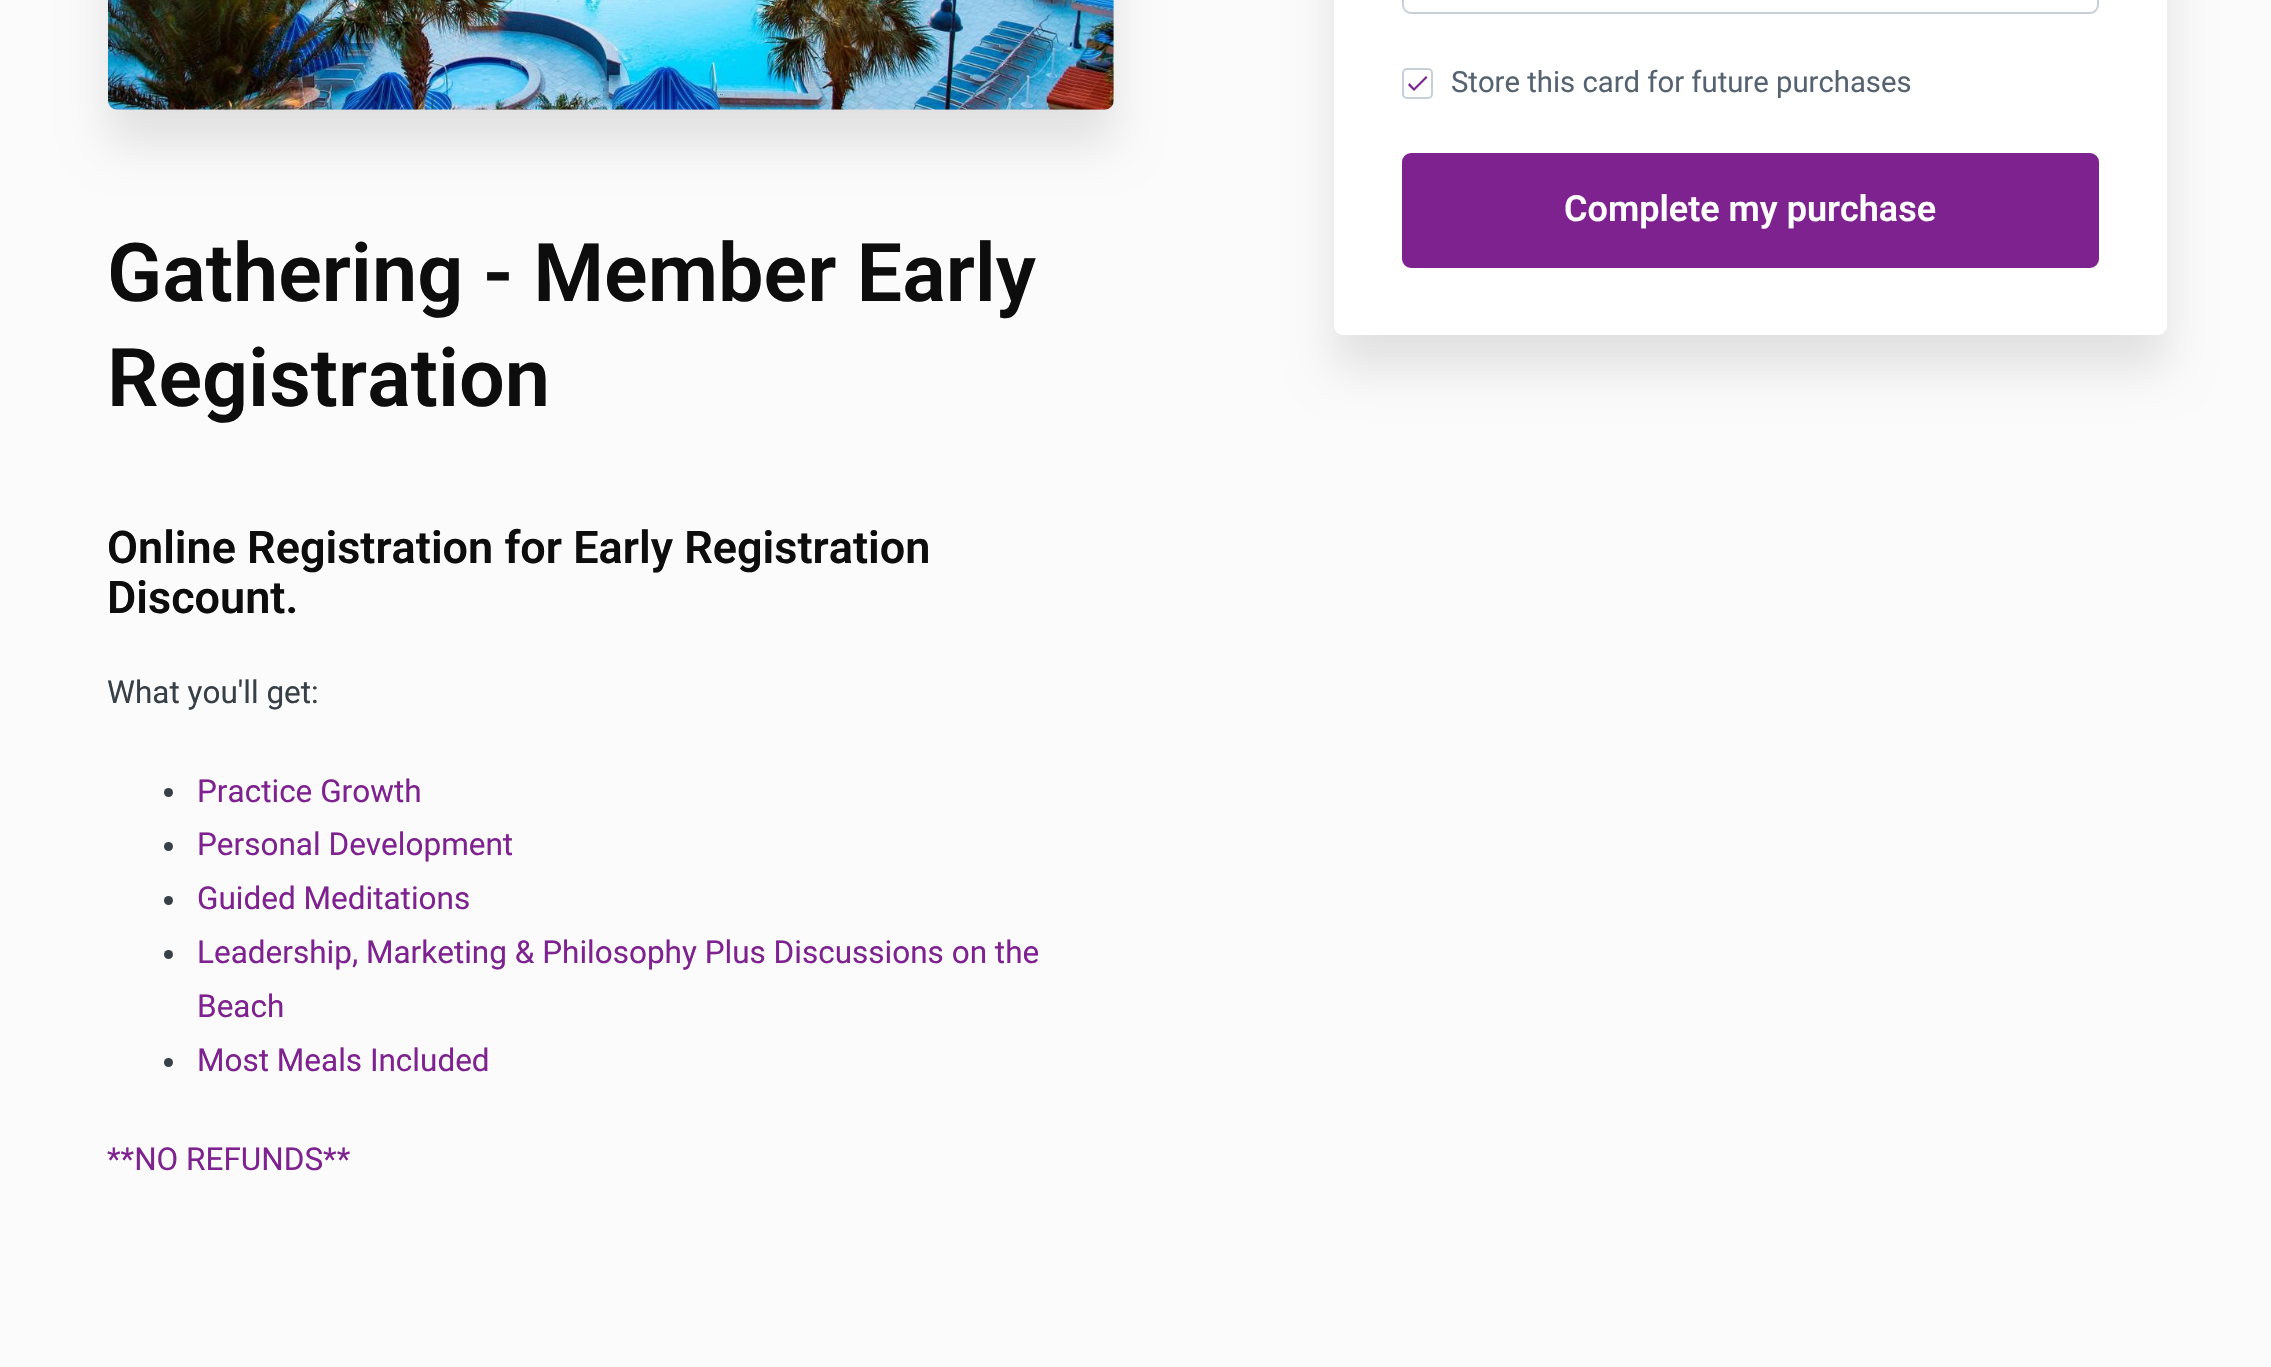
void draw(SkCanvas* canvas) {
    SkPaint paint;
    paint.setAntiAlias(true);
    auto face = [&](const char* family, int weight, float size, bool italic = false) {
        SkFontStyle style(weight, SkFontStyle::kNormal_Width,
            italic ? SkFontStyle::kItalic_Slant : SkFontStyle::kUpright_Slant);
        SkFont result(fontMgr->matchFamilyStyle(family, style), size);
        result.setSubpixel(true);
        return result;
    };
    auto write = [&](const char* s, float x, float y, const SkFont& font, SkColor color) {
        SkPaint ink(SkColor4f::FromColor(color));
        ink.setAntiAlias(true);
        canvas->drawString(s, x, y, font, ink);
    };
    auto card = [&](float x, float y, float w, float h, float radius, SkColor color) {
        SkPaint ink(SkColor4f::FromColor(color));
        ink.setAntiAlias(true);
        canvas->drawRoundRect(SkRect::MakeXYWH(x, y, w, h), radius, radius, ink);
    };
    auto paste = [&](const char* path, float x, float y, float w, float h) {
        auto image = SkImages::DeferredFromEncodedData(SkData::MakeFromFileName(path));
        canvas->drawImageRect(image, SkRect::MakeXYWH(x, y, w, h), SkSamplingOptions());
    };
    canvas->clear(SkColorSetRGB(251, 251, 251));
    paint.setColor(SkColorSetARGB(26, 0, 0, 0));
    paint.setMaskFilter(SkMaskFilter::MakeBlur(kNormal_SkBlurStyle, 22.5f));
    canvas->drawRoundRect(SkRect::MakeXYWH(1334, -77, 833, 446), 9, 9, paint);
    paint.setMaskFilter(nullptr);
    card(1334, -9, 833, 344, 9, SK_ColorWHITE);
    paint.setStyle(SkPaint::kStroke_Style);
    paint.setStrokeWidth(2);
    paint.setColor(SkColorSetRGB(199, 207, 216));
    canvas->drawRoundRect(SkRect::MakeXYWH(1403, -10, 695, 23), 8, 8, paint);
    canvas->drawRoundRect(SkRect::MakeXYWH(1403, 69, 29, 29), 4, 4, paint);
    paint.setStyle(SkPaint::kFill_Style);
    paint.setColor(SkColorSetRGB(126, 34, 143));
    canvas->drawPath(SkPathBuilder().moveTo(1414, 88).lineTo(1426, 76).lineTo(1427.5f, 77.5f).lineTo(1414, 91).lineTo(1408, 85).lineTo(1409.5f, 83).close().detach(), paint);
    auto kFont1 = face("Roboto", 400, 29.25f);
    write("Store this card for future purchases", 1451, 92, kFont1, SkColorSetRGB(85, 99, 112));
    canvas->drawRoundRect(SkRect::MakeXYWH(1403, 154, 695, 113), 8, 8, paint);
    paint.setStyle(SkPaint::kStroke_Style);
    canvas->drawRoundRect(SkRect::MakeXYWH(1403, 154, 695, 113), 8, 8, paint);
    auto kFont2 = face("Roboto", 600, 36);
    write("Complete my purchase", 1564, 221, kFont2, SK_ColorWHITE);
    paint.setStyle(SkPaint::kFill_Style);
    paint.setColor(SkColorSetARGB(26, 0, 0, 0));
    paint.setMaskFilter(SkMaskFilter::MakeBlur(kNormal_SkBlurStyle, 22.5f));
    canvas->drawRoundRect(SkRect::MakeXYWH(108, -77, 1006, 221), 9, 9, paint);
    paint.setMaskFilter(nullptr);
    paste("pic1.png", 108, 0, 1006, 110);
    auto kFont3 = face("Roboto", 600, 81);
    write("Gathering - Member Early", 107, 301, kFont3, SkColorSetRGB(13, 13, 13));
    write("Registration", 107, 406, kFont3, SkColorSetRGB(13, 13, 13));
    auto kFont4 = face("Roboto", 600, 45);
    write("Online Registration for Early Registration", 107, 563, kFont4, SkColorSetRGB(13, 13, 13));
    write("Discount.", 107, 613, kFont4, SkColorSetRGB(13, 13, 13));
    auto kFont5 = face("Roboto", 400, 31.5f);
    write("What you'll get:", 107, 703, kFont5, SkColorSetRGB(55, 63, 71));
    paint.setColor(SkColorSetRGB(55, 63, 71));
    canvas->drawCircle(168.5f, 792.5f, 4.5f, paint);
    write("Practice Growth", 197, 802, kFont5, SkColorSetRGB(126, 34, 143));
    canvas->drawCircle(168.5f, 846.5f, 4.5f, paint);
    write("Personal Development", 197, 855, kFont5, SkColorSetRGB(126, 34, 143));
    canvas->drawCircle(168.5f, 900.5f, 4.5f, paint);
    write("Guided Meditations", 197, 909, kFont5, SkColorSetRGB(126, 34, 143));
    canvas->drawCircle(168.5f, 954.5f, 4.5f, paint);
    write("Leadership, Marketing & Philosophy Plus Discussions on the", 197, 963, kFont5, SkColorSetRGB(126, 34, 143));
    write("Beach", 197, 1017, kFont5, SkColorSetRGB(126, 34, 143));
    canvas->drawCircle(168.5f, 1062.5f, 4.5f, paint);
    write("Most Meals Included", 197, 1071, kFont5, SkColorSetRGB(126, 34, 143));
    write("**NO REFUNDS**", 107, 1170, kFont5, SkColorSetRGB(126, 34, 143));
}
